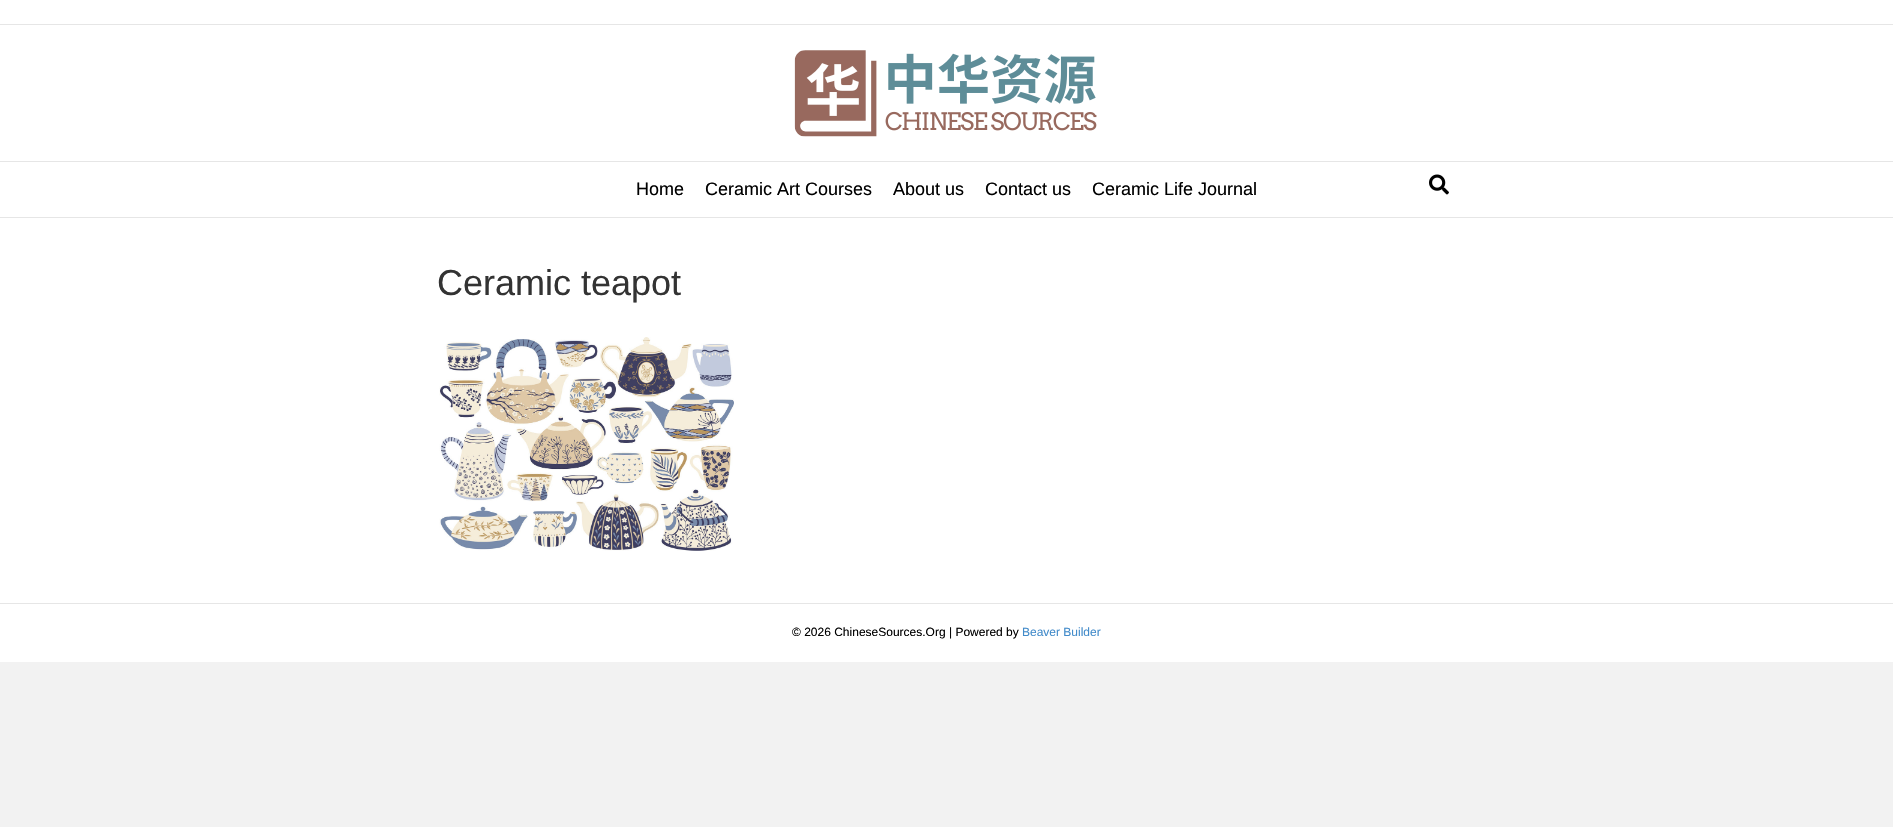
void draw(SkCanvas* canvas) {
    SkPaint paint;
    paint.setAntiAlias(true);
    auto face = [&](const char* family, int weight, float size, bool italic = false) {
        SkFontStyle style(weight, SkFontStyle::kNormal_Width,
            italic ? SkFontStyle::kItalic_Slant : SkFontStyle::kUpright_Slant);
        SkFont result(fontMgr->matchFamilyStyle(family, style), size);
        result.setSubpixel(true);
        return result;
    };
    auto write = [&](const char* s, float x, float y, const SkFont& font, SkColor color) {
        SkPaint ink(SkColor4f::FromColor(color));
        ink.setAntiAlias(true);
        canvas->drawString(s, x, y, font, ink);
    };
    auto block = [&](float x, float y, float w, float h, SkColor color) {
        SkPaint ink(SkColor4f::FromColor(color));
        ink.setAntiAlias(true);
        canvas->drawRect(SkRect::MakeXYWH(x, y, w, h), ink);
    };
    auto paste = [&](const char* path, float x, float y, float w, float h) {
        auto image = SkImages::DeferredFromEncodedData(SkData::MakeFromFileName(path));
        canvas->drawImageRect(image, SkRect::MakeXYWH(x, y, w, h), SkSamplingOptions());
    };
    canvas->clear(SkColorSetRGB(242, 242, 242));
    block(0, 0, 1893, 24, SK_ColorWHITE);
    block(0, 24, 1893, 1, SkColorSetRGB(230, 230, 230));
    block(0, 25, 1893, 192, SK_ColorWHITE);
    paste("pic1.png", 794, 50, 303, 87);
    block(0, 161, 1893, 1, SkColorSetRGB(230, 230, 230));
    block(0, 217, 1893, 1, SkColorSetRGB(230, 230, 230));
    auto kFont1 = face("Liberation Sans", 400, 18);
    write("Home", 636, 195, kFont1, SK_ColorBLACK);
    write("Ceramic Art Courses", 705, 195, kFont1, SK_ColorBLACK);
    write("About us", 893, 195, kFont1, SK_ColorBLACK);
    write("Contact us", 985, 195, kFont1, SK_ColorBLACK);
    write("Ceramic Life Journal", 1092, 195, kFont1, SK_ColorBLACK);
    paste("pic2.png", 1429, 174, 20, 21);
    block(0, 218, 1893, 385, SK_ColorWHITE);
    auto kFont2 = face("Liberation Sans", 400, 36);
    write("Ceramic teapot", 437, 295, kFont2, SkColorSetRGB(51, 51, 51));
    paste("pic3.png", 439, 337, 295, 214);
    block(0, 604, 1893, 58, SK_ColorWHITE);
    block(0, 603, 1893, 1, SkColorSetRGB(230, 230, 230));
    auto kFont3 = face("Liberation Sans", 400, 12);
    write("© 2026 ChineseSources.Org | Powered by", 792, 636, kFont3, SK_ColorBLACK);
    write("Beaver Builder", 1022, 636, kFont3, SkColorSetRGB(66, 139, 202));
}
